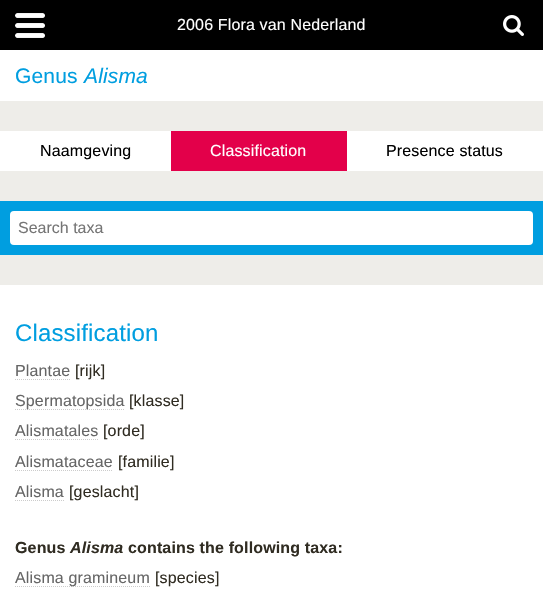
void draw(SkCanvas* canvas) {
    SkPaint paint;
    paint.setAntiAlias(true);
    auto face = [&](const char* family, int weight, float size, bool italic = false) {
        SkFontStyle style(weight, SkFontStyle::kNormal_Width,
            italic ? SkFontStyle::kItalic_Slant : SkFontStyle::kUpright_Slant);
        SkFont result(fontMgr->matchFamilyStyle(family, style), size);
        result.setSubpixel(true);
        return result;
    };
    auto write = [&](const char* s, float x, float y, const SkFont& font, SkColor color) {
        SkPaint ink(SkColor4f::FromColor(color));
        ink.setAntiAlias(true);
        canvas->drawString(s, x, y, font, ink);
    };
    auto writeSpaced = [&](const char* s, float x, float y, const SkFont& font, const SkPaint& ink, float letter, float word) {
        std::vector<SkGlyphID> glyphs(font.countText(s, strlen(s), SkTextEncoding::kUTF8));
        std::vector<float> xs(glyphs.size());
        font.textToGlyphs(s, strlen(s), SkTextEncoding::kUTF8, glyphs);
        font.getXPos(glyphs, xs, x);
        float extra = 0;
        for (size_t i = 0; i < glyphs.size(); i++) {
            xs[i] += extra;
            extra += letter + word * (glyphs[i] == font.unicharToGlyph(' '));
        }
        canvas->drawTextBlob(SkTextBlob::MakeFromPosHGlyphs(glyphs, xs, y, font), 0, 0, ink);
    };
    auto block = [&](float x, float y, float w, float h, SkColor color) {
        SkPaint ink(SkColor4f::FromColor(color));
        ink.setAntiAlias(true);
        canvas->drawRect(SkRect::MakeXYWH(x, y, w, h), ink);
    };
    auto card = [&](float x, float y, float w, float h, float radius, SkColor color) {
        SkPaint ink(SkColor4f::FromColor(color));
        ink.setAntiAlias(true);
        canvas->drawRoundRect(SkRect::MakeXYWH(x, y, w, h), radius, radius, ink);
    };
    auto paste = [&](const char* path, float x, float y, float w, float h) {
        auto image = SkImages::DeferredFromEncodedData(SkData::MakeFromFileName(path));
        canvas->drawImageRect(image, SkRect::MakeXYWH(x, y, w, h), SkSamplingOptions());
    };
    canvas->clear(SkColorSetRGB(238, 237, 233));
    block(0, 0, 543, 50, SK_ColorBLACK);
    paste("pic1.png", 15, 13, 30, 25);
    auto kFont1 = face("Liberation Sans", 400, 16);
    paint.setColor(SK_ColorWHITE);
    writeSpaced("2006 Flora van Nederland", 177, 30, kFont1, paint, 0.15f, 0);
    paste("pic2.png", 503, 15, 21, 21);
    block(0, 50, 543, 51, SK_ColorWHITE);
    auto kFont2 = face("Liberation Sans", 400, 21);
    paint.setColor(SkColorSetRGB(0, 158, 224));
    writeSpaced("Genus", 15, 83, kFont2, paint, 0.15f, 0);
    auto kFont3 = face("Liberation Sans", 400, 21, true);
    writeSpaced("Alisma", 84, 83, kFont3, paint, 0.15f, 0);
    block(0, 131, 543, 40, SK_ColorWHITE);
    paint.setColor(SK_ColorBLACK);
    writeSpaced("Naamgeving", 40, 156, kFont1, paint, 0.15f, 0);
    block(171, 131, 176, 40, SkColorSetRGB(227, 0, 74));
    paint.setColor(SK_ColorWHITE);
    writeSpaced("Classification", 210, 156, kFont1, paint, 0.15f, 0);
    paint.setColor(SK_ColorBLACK);
    writeSpaced("Presence status", 386, 156, kFont1, paint, 0.15f, 0);
    block(0, 201, 543, 54, SkColorSetRGB(0, 158, 224));
    card(10, 211, 523, 34, 4, SK_ColorWHITE);
    write("Search taxa", 18, 233, kFont1, SkColorSetRGB(117, 117, 117));
    block(0, 285, 543, 311, SK_ColorWHITE);
    auto kFont4 = face("Liberation Sans", 400, 24);
    paint.setColor(SkColorSetRGB(0, 158, 224));
    writeSpaced("Classification", 15, 341, kFont4, paint, 0.15f, 0);
    paint.setColor(SkColorSetRGB(102, 102, 102));
    writeSpaced("Plantae", 15, 376, kFont1, paint, 0.15f, 0);
    paint.setStyle(SkPaint::kStroke_Style);
    paint.setStrokeWidth(1);
    paint.setColor(SkColorSetRGB(204, 204, 204));
    paint.setPathEffect(SkDashPathEffect::Make({{1, 1}}, 0));
    canvas->drawPath(SkPathBuilder().moveTo(15, 379.5f).lineTo(70, 379.5f).detach(), paint);
    paint.setPathEffect(nullptr);
    paint.setStyle(SkPaint::kFill_Style);
    paint.setColor(SkColorSetRGB(48, 44, 34));
    writeSpaced("[rijk]", 75, 376, kFont1, paint, 0.15f, 0);
    paint.setStyle(SkPaint::kStroke_Style);
    paint.setColor(SkColorSetRGB(204, 204, 204));
    paint.setPathEffect(SkDashPathEffect::Make({{1, 1}}, 0));
    canvas->drawPath(SkPathBuilder().moveTo(15, 409.5f).lineTo(125, 409.5f).detach(), paint);
    paint.setPathEffect(nullptr);
    paint.setStyle(SkPaint::kFill_Style);
    paint.setColor(SkColorSetRGB(102, 102, 102));
    writeSpaced("Spermatopsida", 15, 406, kFont1, paint, 0.15f, 0);
    paint.setColor(SkColorSetRGB(48, 44, 34));
    writeSpaced("[klasse]", 129, 406, kFont1, paint, 0.15f, 0);
    paint.setColor(SkColorSetRGB(102, 102, 102));
    writeSpaced("Alismatales", 15, 436, kFont1, paint, 0.15f, 0);
    paint.setStyle(SkPaint::kStroke_Style);
    paint.setColor(SkColorSetRGB(204, 204, 204));
    paint.setPathEffect(SkDashPathEffect::Make({{1, 1}}, 0));
    canvas->drawPath(SkPathBuilder().moveTo(15, 439.5f).lineTo(99, 439.5f).detach(), paint);
    paint.setPathEffect(nullptr);
    paint.setStyle(SkPaint::kFill_Style);
    paint.setColor(SkColorSetRGB(48, 44, 34));
    writeSpaced("[orde]", 103, 436, kFont1, paint, 0.15f, 0);
    paint.setColor(SkColorSetRGB(102, 102, 102));
    writeSpaced("Alismataceae", 15, 467, kFont1, paint, 0.15f, 0);
    paint.setStyle(SkPaint::kStroke_Style);
    paint.setColor(SkColorSetRGB(204, 204, 204));
    paint.setPathEffect(SkDashPathEffect::Make({{1, 1}}, 0));
    canvas->drawPath(SkPathBuilder().moveTo(15, 470.5f).lineTo(113, 470.5f).detach(), paint);
    paint.setPathEffect(nullptr);
    paint.setStyle(SkPaint::kFill_Style);
    paint.setColor(SkColorSetRGB(48, 44, 34));
    writeSpaced("[familie]", 118, 467, kFont1, paint, 0.15f, 0);
    paint.setColor(SkColorSetRGB(102, 102, 102));
    writeSpaced("Alisma", 15, 497, kFont1, paint, 0.15f, 0);
    paint.setStyle(SkPaint::kStroke_Style);
    paint.setColor(SkColorSetRGB(204, 204, 204));
    paint.setPathEffect(SkDashPathEffect::Make({{1, 1}}, 0));
    canvas->drawPath(SkPathBuilder().moveTo(15, 500.5f).lineTo(64, 500.5f).detach(), paint);
    paint.setPathEffect(nullptr);
    paint.setStyle(SkPaint::kFill_Style);
    paint.setColor(SkColorSetRGB(48, 44, 34));
    writeSpaced("[geslacht]", 69, 497, kFont1, paint, 0.15f, 0);
    auto kFont5 = face("Liberation Sans", 700, 16);
    writeSpaced("Genus", 15, 553, kFont5, paint, 0.15f, 0);
    auto kFont6 = face("Liberation Sans", 700, 16, true);
    writeSpaced("Alisma", 70, 553, kFont6, paint, 0.15f, 0);
    writeSpaced("contains the following taxa:", 128, 553, kFont5, paint, 0.15f, 0);
    paint.setStyle(SkPaint::kStroke_Style);
    paint.setColor(SkColorSetRGB(204, 204, 204));
    paint.setPathEffect(SkDashPathEffect::Make({{1, 1}}, 0));
    canvas->drawPath(SkPathBuilder().moveTo(15, 586.5f).lineTo(150, 586.5f).detach(), paint);
    paint.setPathEffect(nullptr);
    paint.setStyle(SkPaint::kFill_Style);
    paint.setColor(SkColorSetRGB(102, 102, 102));
    writeSpaced("Alisma gramineum", 15, 583, kFont1, paint, 0.15f, 0);
    paint.setColor(SkColorSetRGB(48, 44, 34));
    writeSpaced("[species]", 155, 583, kFont1, paint, 0.15f, 0);
}
